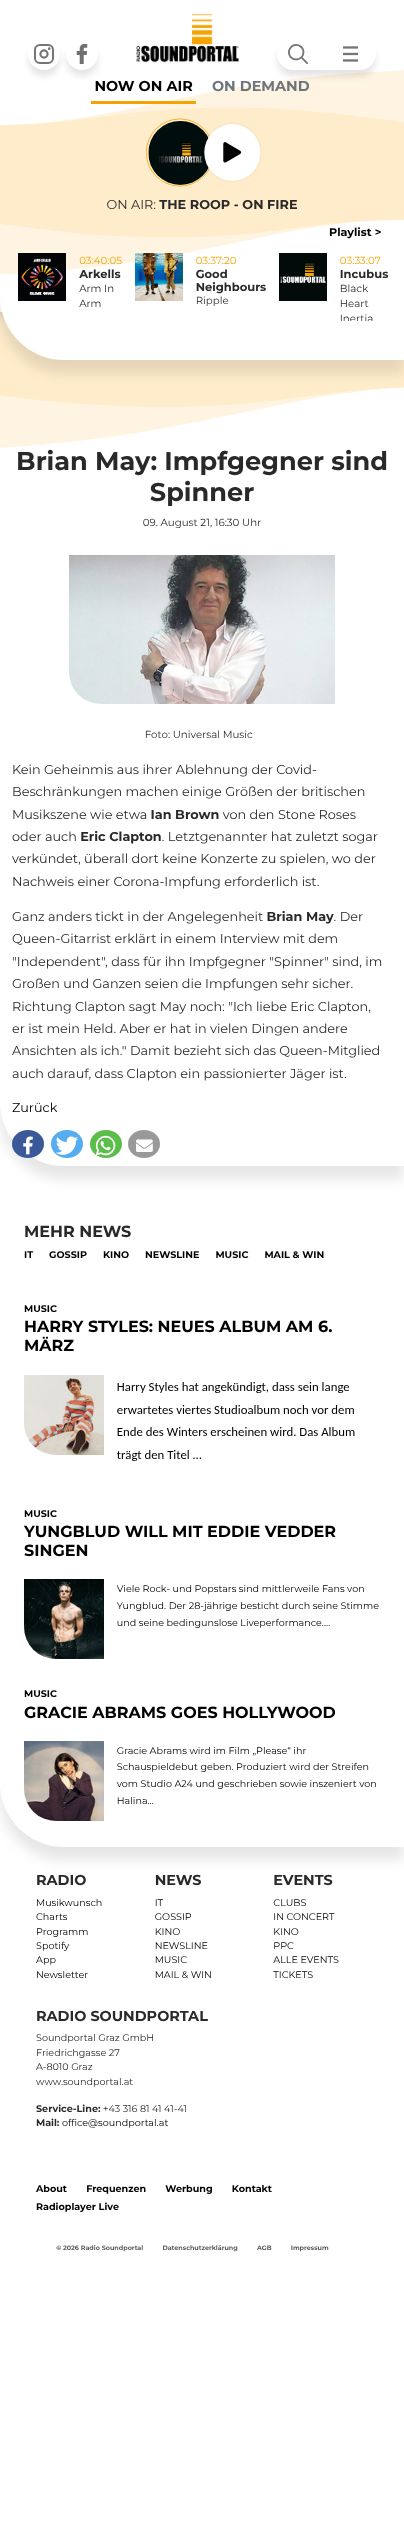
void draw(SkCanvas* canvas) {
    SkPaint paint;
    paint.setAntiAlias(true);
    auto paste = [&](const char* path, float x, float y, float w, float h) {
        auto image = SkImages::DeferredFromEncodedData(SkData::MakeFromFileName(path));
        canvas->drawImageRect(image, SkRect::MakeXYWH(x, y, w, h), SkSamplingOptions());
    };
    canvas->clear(SK_ColorWHITE);
    paste("pic1.png", 0, 13, 404, 2239);
}
